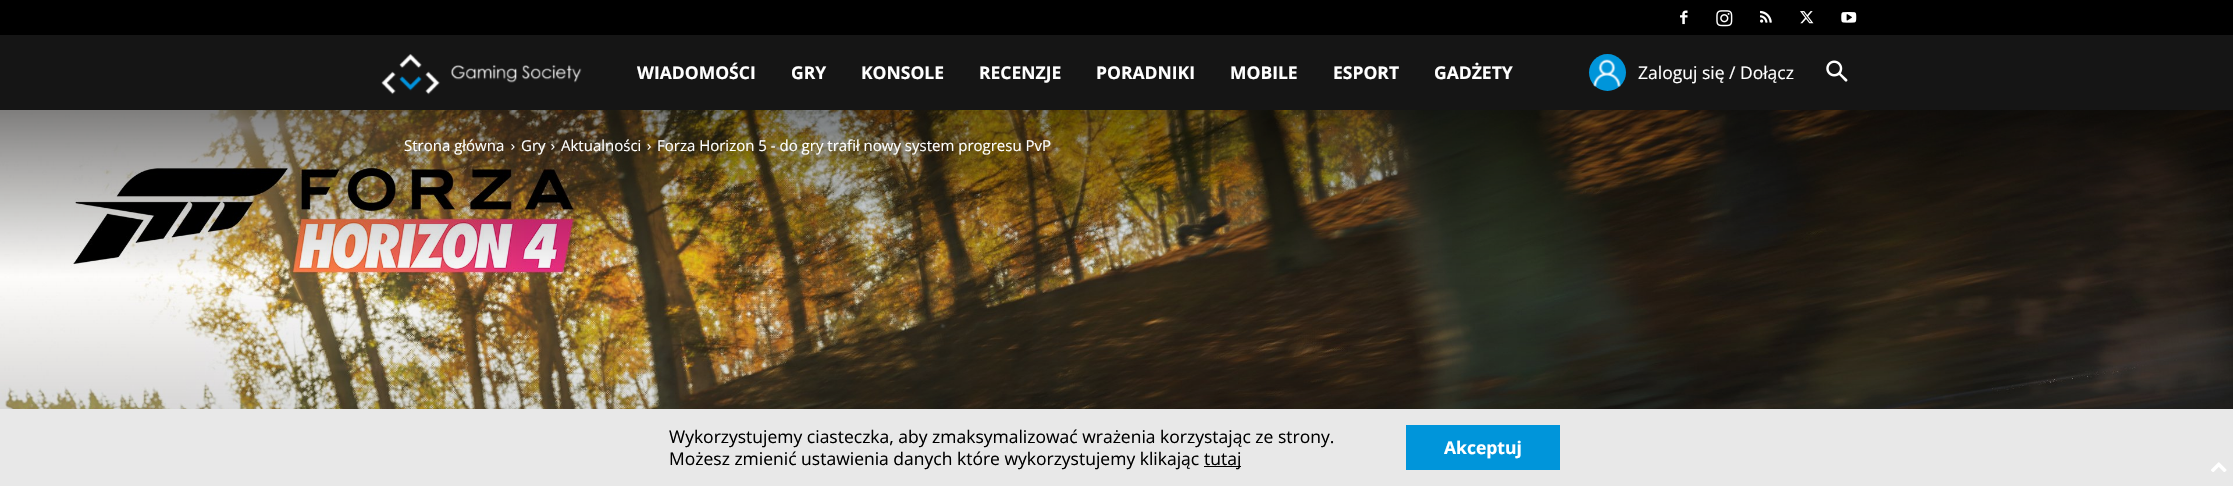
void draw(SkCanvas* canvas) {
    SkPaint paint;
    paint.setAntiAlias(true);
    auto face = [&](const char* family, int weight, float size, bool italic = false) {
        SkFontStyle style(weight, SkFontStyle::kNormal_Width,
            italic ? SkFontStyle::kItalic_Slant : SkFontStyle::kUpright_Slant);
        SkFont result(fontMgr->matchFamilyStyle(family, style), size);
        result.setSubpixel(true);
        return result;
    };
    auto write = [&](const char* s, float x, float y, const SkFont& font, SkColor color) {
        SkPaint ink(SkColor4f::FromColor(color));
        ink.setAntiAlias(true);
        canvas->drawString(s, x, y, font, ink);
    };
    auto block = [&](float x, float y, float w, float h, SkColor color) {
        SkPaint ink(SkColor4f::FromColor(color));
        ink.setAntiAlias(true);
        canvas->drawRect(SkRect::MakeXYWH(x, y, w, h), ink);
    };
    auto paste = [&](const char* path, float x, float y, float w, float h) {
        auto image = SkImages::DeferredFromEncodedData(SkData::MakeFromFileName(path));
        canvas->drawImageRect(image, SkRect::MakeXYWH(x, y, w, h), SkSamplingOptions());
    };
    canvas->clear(SK_ColorWHITE);
    block(0, 0, 2233, 35, SK_ColorBLACK);
    paste("pic1.png", 1680, 10, 8, 15);
    paste("pic2.png", 1716, 10, 17, 17);
    paste("pic3.png", 1760, 10, 12, 13);
    paste("pic4.png", 1800, 11, 14, 13);
    paste("pic5.png", 1841, 12, 16, 11);
    block(0, 35, 2233, 75, SkColorSetRGB(21, 21, 21));
    paste("pic6.png", 381, 54, 201, 41);
    auto kFont1 = face("Open Sans", 700, 17.5f);
    write("WIADOMOŚCI", 637, 79, kFont1, SK_ColorWHITE);
    write("GRY", 791, 79, kFont1, SK_ColorWHITE);
    write("KONSOLE", 861, 79, kFont1, SK_ColorWHITE);
    write("RECENZJE", 979, 79, kFont1, SK_ColorWHITE);
    write("PORADNIKI", 1096, 79, kFont1, SK_ColorWHITE);
    write("MOBILE", 1230, 79, kFont1, SK_ColorWHITE);
    write("ESPORT", 1333, 79, kFont1, SK_ColorWHITE);
    write("GADŻETY", 1434, 79, kFont1, SK_ColorWHITE);
    paint.setColor(SkColorSetRGB(0, 149, 218));
    canvas->drawCircle(1607.5f, 72.5f, 18.5f, paint);
    paste("pic7.png", 1593, 59, 28, 28);
    auto kFont2 = face("Open Sans", 400, 17.5f);
    write("Zaloguj się / Dołącz", 1638, 79, kFont2, SK_ColorWHITE);
    paste("pic8.png", 1826, 60, 22, 22);
    paste("pic9.png", 0, 110, 2233, 299);
    auto kFont3 = face("Open Sans", 400, 15);
    write("Strona główna", 404, 151, kFont3, SK_ColorWHITE);
    paste("pic10.png", 511, 144, 4, 6);
    write("Gry", 521, 151, kFont3, SK_ColorWHITE);
    paste("pic11.png", 551, 144, 4, 6);
    write("Aktualności", 561, 151, kFont3, SK_ColorWHITE);
    paste("pic12.png", 647, 144, 4, 6);
    write("Forza Horizon 5 - do gry trafił nowy system progresu PvP", 657, 151, kFont3, SK_ColorWHITE);
    block(0, 409, 2233, 77, SkColorSetRGB(232, 232, 232));
    write("Wykorzystujemy ciasteczka, aby zmaksymalizować wrażenia korzystając ze strony.", 669, 443, kFont2, SK_ColorBLACK);
    write("Możesz zmienić ustawienia danych które wykorzystujemy klikając", 669, 465, kFont2, SK_ColorBLACK);
    block(1204, 466, 37, 1, SK_ColorBLACK);
    write("tutaj", 1204, 465, kFont2, SK_ColorBLACK);
    block(1406, 425, 154, 45, SkColorSetRGB(0, 149, 218));
    write("Akceptuj", 1444, 454, kFont1, SK_ColorWHITE);
    paste("pic13.png", 2211, 462, 16, 10);
}
